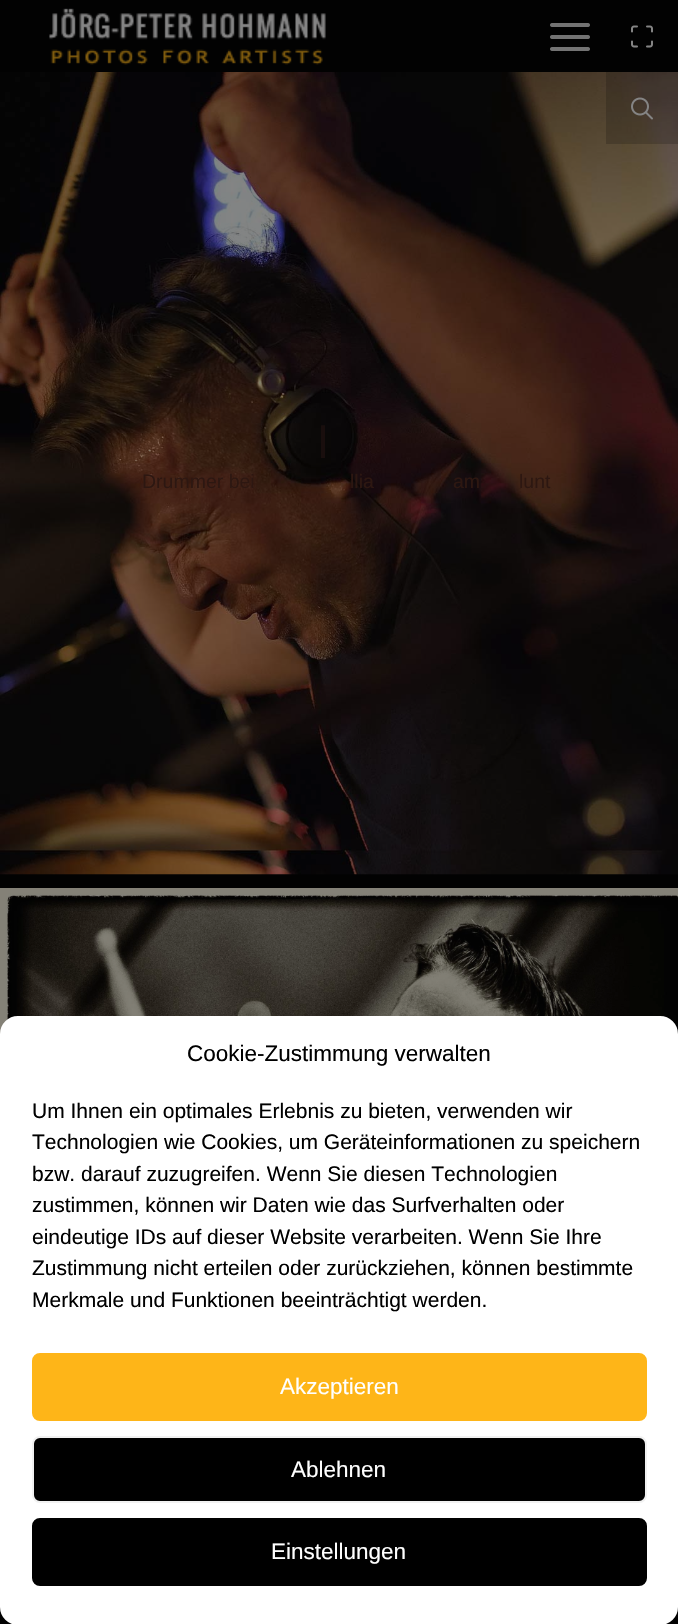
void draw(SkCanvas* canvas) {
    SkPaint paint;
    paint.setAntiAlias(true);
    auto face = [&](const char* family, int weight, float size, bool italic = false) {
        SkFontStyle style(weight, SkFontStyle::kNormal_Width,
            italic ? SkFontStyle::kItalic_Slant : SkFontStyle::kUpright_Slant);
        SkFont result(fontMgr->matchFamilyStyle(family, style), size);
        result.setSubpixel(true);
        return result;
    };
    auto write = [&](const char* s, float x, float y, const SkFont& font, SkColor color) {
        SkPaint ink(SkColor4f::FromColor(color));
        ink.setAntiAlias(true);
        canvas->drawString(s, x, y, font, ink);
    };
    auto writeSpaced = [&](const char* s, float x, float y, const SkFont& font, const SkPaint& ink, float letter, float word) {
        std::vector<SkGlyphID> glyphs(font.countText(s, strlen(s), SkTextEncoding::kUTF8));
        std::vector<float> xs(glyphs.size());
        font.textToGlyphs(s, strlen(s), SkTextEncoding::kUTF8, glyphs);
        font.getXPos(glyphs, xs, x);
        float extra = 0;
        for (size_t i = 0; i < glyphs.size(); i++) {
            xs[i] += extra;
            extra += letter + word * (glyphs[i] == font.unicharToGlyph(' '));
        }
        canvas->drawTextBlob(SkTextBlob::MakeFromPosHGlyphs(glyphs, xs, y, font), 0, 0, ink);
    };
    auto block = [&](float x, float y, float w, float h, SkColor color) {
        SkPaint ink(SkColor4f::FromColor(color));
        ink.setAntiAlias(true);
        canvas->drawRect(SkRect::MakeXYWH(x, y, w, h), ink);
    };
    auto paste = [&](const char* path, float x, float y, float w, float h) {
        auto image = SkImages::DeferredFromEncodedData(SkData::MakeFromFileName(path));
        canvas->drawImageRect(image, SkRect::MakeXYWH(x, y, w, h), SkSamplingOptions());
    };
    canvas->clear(SkColorSetRGB(2, 2, 2));
    paste("pic1.png", 49, 8, 277, 57);
    paste("pic2.png", 550, 23, 40, 28);
    paste("pic3.png", 631, 25, 22, 23);
    paste("pic5.png", 0, 72, 678, 803);
    block(606, 72, 72, 72, SkColorSetARGB(46, 2, 2, 2));
    paste("pic4.png", 631, 97, 22, 23);
    auto kFont1 = face("Liberation Sans", 400, 45);
    paint.setColor(SkColorSetRGB(25, 14, 13));
    writeSpaced("l", 318, 458, kFont1, paint, -2, 0);
    auto kFont2 = face("Liberation Sans", 400, 19.5f);
    write("Drummer bei", 142, 488, kFont2, SkColorSetRGB(45, 23, 17));
    write("llia", 350, 488, kFont2, SkColorSetRGB(45, 23, 17));
    write("am", 453, 488, kFont2, SkColorSetRGB(45, 23, 17));
    write("lunt", 519, 488, kFont2, SkColorSetRGB(45, 23, 17));
    paste("pic6.png", 0, 888, 678, 146);
    paint.setColor(SK_ColorWHITE);
    canvas->drawRoundRect(SkRect::MakeXYWH(1, 1017, 676, 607), 17, 17, paint);
    paint.setStyle(SkPaint::kStroke_Style);
    paint.setStrokeWidth(2);
    canvas->drawRoundRect(SkRect::MakeXYWH(1, 1017, 676, 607), 17, 17, paint);
    auto kFont3 = face("Liberation Sans", 400, 22.5f);
    write("Cookie-Zustimmung verwalten", 187, 1061, kFont3, SK_ColorBLACK);
    auto kFont4 = face("Liberation Sans", 400, 21);
    write("Um Ihnen ein optimales Erlebnis zu bieten, verwenden wir", 32, 1118, kFont4, SK_ColorBLACK);
    write("Technologien wie Cookies, um Geräteinformationen zu speichern", 32, 1149, kFont4, SK_ColorBLACK);
    write("bzw. darauf zuzugreifen. Wenn Sie diesen Technologien", 32, 1181, kFont4, SK_ColorBLACK);
    write("zustimmen, können wir Daten wie das Surfverhalten oder", 32, 1212, kFont4, SK_ColorBLACK);
    write("eindeutige IDs auf dieser Website verarbeiten. Wenn Sie Ihre", 32, 1244, kFont4, SK_ColorBLACK);
    write("Zustimmung nicht erteilen oder zurückziehen, können bestimmte", 32, 1275, kFont4, SK_ColorBLACK);
    write("Merkmale und Funktionen beeinträchtigt werden.", 32, 1307, kFont4, SK_ColorBLACK);
    paint.setStyle(SkPaint::kFill_Style);
    paint.setColor(SkColorSetRGB(254, 181, 24));
    canvas->drawRoundRect(SkRect::MakeXYWH(33, 1354, 613, 66), 7, 7, paint);
    paint.setStyle(SkPaint::kStroke_Style);
    canvas->drawRoundRect(SkRect::MakeXYWH(33, 1354, 613, 66), 7, 7, paint);
    write("Akzeptieren", 280, 1394, kFont3, SK_ColorWHITE);
    paint.setStyle(SkPaint::kFill_Style);
    paint.setColor(SK_ColorBLACK);
    canvas->drawRoundRect(SkRect::MakeXYWH(33, 1437, 613, 65), 7, 7, paint);
    paint.setStyle(SkPaint::kStroke_Style);
    paint.setColor(SkColorSetRGB(241, 241, 241));
    canvas->drawRoundRect(SkRect::MakeXYWH(33, 1437, 613, 65), 7, 7, paint);
    write("Ablehnen", 291, 1477, kFont3, SK_ColorWHITE);
    paint.setStyle(SkPaint::kFill_Style);
    paint.setColor(SK_ColorBLACK);
    canvas->drawRoundRect(SkRect::MakeXYWH(33, 1519, 613, 66), 7, 7, paint);
    paint.setStyle(SkPaint::kStroke_Style);
    canvas->drawRoundRect(SkRect::MakeXYWH(33, 1519, 613, 66), 7, 7, paint);
    write("Einstellungen", 271, 1559, kFont3, SK_ColorWHITE);
}
